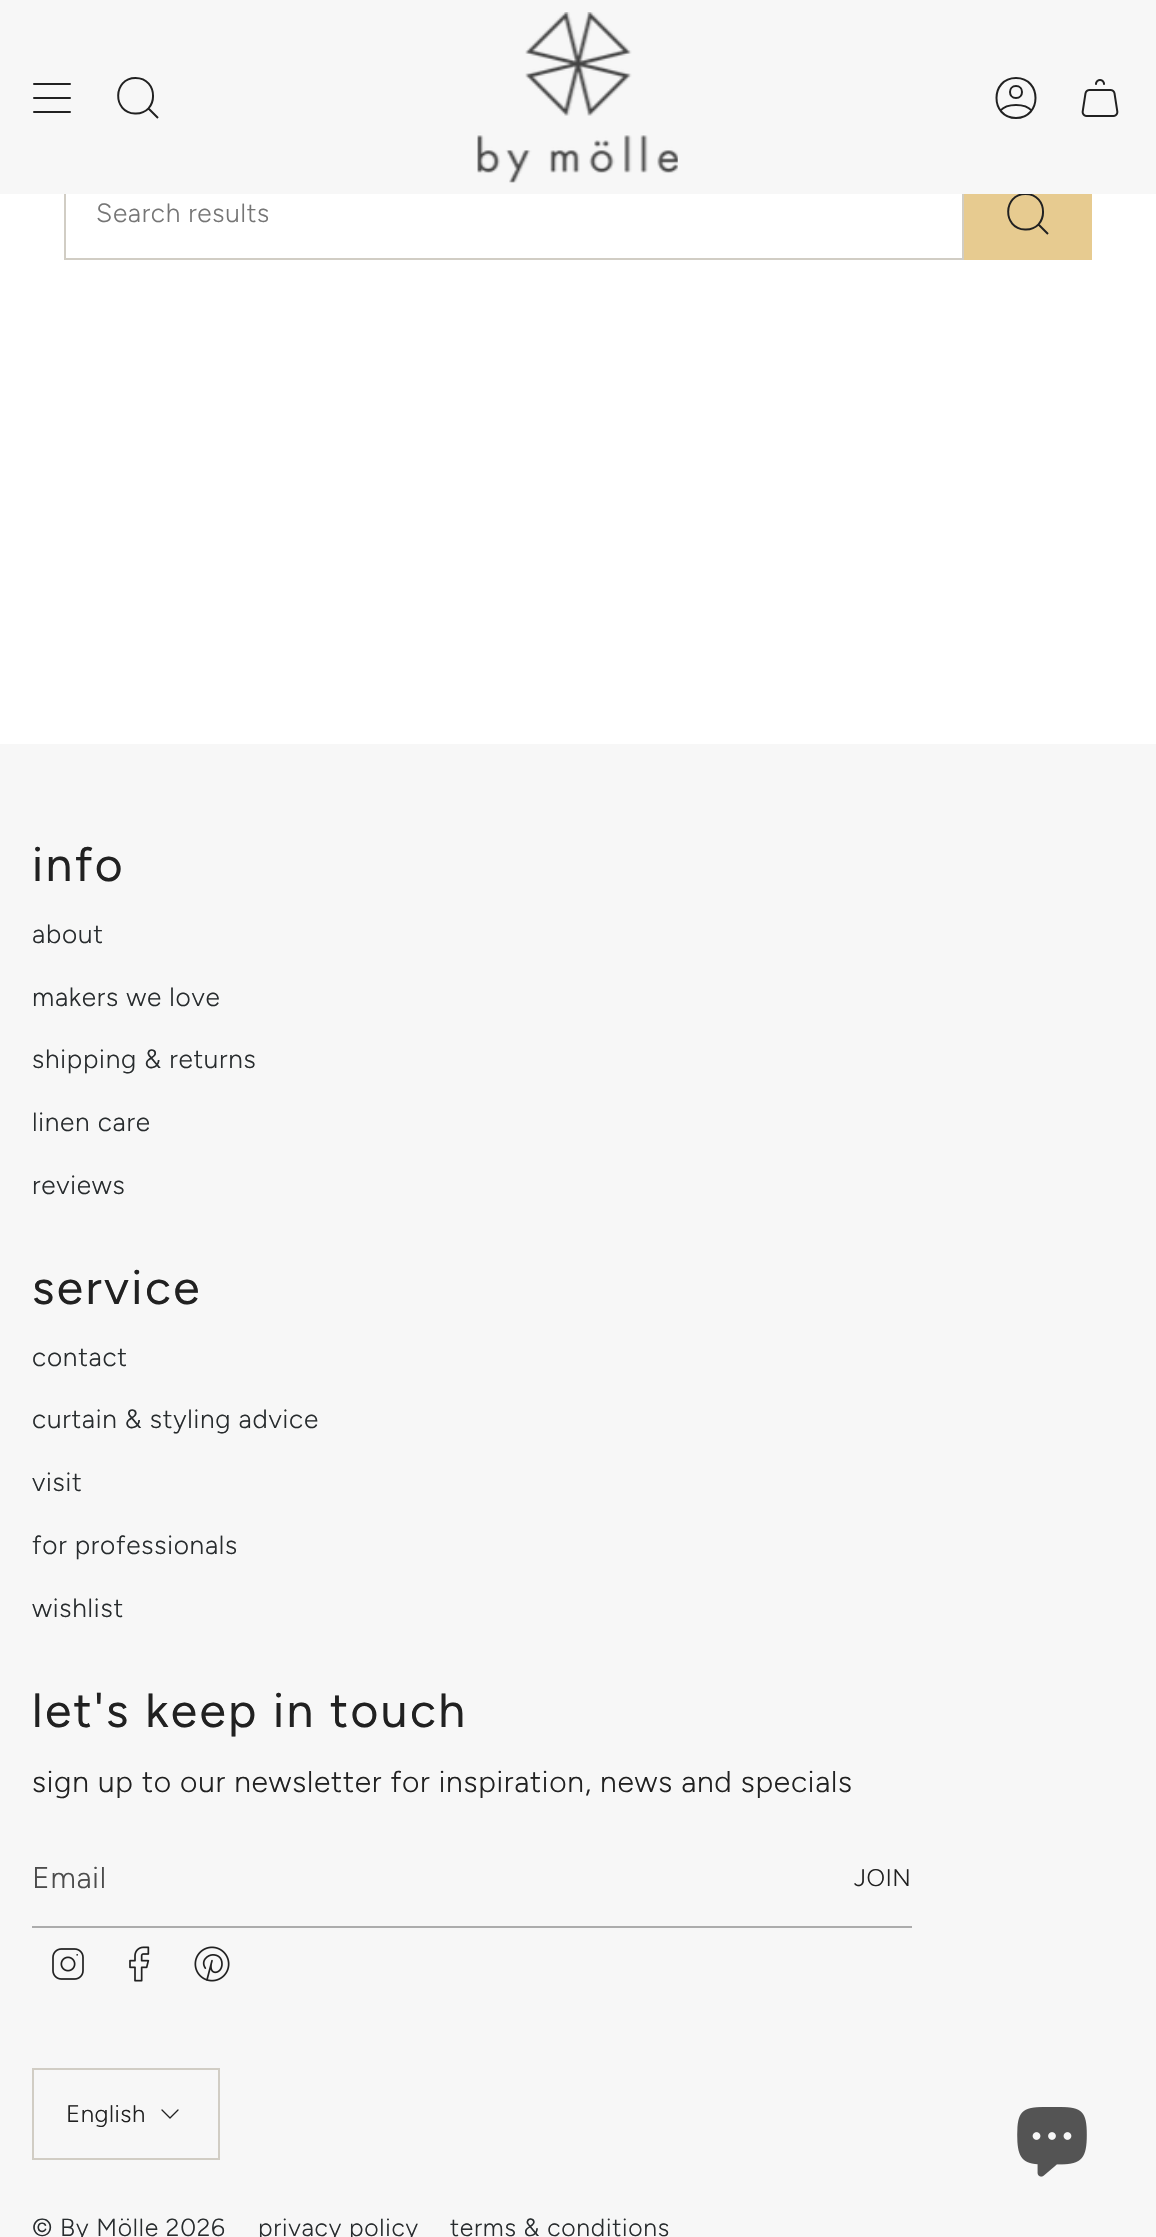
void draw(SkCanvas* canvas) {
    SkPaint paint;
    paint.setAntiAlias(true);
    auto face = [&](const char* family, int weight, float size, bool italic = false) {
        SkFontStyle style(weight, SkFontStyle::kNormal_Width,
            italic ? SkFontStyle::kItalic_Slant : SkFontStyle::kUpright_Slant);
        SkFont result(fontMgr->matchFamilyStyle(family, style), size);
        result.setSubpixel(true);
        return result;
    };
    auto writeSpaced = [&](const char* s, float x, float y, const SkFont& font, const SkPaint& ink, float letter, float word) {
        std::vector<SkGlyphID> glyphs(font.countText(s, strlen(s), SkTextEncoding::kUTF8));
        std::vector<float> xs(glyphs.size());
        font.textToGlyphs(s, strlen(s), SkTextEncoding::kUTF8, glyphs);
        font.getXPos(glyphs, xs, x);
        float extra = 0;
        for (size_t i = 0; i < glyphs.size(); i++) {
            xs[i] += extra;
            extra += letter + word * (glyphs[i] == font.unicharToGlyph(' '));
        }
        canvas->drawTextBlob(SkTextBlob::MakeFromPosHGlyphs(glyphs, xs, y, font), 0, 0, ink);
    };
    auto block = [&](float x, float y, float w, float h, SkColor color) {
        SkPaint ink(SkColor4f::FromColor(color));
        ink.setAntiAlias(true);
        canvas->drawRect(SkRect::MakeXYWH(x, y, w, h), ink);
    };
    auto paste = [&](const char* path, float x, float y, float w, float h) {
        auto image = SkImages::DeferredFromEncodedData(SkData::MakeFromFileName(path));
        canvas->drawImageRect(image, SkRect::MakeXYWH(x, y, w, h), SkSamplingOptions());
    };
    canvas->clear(SK_ColorWHITE);
    paint.setStyle(SkPaint::kStroke_Style);
    paint.setStrokeWidth(2);
    paint.setColor(SkColorSetRGB(209, 205, 196));
    canvas->drawRect(SkRect::MakeXYWH(65, 167, 898, 92), paint);
    block(964, 194, 128, 66, SkColorSetRGB(231, 203, 144));
    paint.setColor(SkColorSetRGB(33, 33, 33));
    canvas->drawPath(SkPathBuilder().moveTo(1025.5f, 194).cubicTo(1049, 194, 1049, 230.5f, 1025, 229.5f).cubicTo(1002, 228.5f, 1003, 194, 1025.5f, 194).close().moveTo(1038, 224).lineTo(1048, 234).detach(), paint);
    block(0, 0, 1156, 194, SkColorSetRGB(247, 247, 247));
    paint.setStrokeCap(SkPaint::kRound_Cap);
    paint.setStrokeJoin(SkPaint::kRound_Join);
    canvas->drawPath(SkPathBuilder().moveTo(34, 84).lineTo(70, 84).moveTo(34, 98).lineTo(70, 98).moveTo(34, 112).lineTo(70, 112).detach(), paint);
    paint.setStrokeCap(SkPaint::kButt_Cap);
    paint.setStrokeJoin(SkPaint::kMiter_Join);
    canvas->drawPath(SkPathBuilder().moveTo(135.5f, 78).cubicTo(159, 78, 159, 114.5f, 135, 113.5f).cubicTo(112, 112.5f, 113, 78, 135.5f, 78).close().moveTo(148, 108).lineTo(158, 118).detach(), paint);
    paste("pic1.png", 477, 12, 201, 171);
    paint.setStrokeCap(SkPaint::kRound_Cap);
    paint.setStrokeJoin(SkPaint::kRound_Join);
    canvas->drawPath(SkPathBuilder().moveTo(1016, 78).cubicTo(990, 78, 990, 118, 1016, 118).cubicTo(1042, 118, 1042, 78, 1016, 78).close().moveTo(1000.5f, 110.5f).cubicTo(1006.5f, 103, 1025.5f, 103, 1031.5f, 110.5f).moveTo(1016, 98).cubicTo(1024, 98, 1024, 86, 1016, 86).cubicTo(1008, 86, 1008, 98, 1016, 98).close().detach(), paint);
    paste("pic2.png", 1081, 79, 38, 38);
    auto kFont1 = face("Figtree", 300, 26.25f);
    paint.setStyle(SkPaint::kFill_Style);
    paint.setColor(SkColorSetRGB(117, 117, 117));
    writeSpaced("Search results", 96, 222, kFont1, paint, 0.7f, 0);
    block(0, 744, 1156, 1493, SkColorSetRGB(247, 247, 247));
    auto kFont2 = face("Figtree", 400, 48);
    paint.setColor(SkColorSetRGB(33, 33, 33));
    writeSpaced("info", 32, 881, kFont2, paint, 2.4f, 0);
    paint.setColor(SkColorSetRGB(40, 44, 46));
    writeSpaced("about", 32, 943, kFont1, paint, 0.75f, 0);
    writeSpaced("makers we love", 32, 1006, kFont1, paint, 0.75f, 0);
    writeSpaced("shipping & returns", 32, 1068, kFont1, paint, 0.75f, 0);
    writeSpaced("linen care", 32, 1131, kFont1, paint, 0.75f, 0);
    writeSpaced("reviews", 32, 1194, kFont1, paint, 0.75f, 0);
    paint.setColor(SkColorSetRGB(33, 33, 33));
    writeSpaced("service", 32, 1304, kFont2, paint, 2.4f, 0);
    paint.setColor(SkColorSetRGB(40, 44, 46));
    writeSpaced("contact", 32, 1366, kFont1, paint, 0.75f, 0);
    writeSpaced("curtain & styling advice", 32, 1428, kFont1, paint, 0.75f, 0);
    writeSpaced("visit", 32, 1491, kFont1, paint, 0.75f, 0);
    writeSpaced("for professionals", 32, 1554, kFont1, paint, 0.75f, 0);
    writeSpaced("wishlist", 32, 1617, kFont1, paint, 0.75f, 0);
    paint.setColor(SkColorSetRGB(33, 33, 33));
    writeSpaced("let's keep in touch", 32, 1727, kFont2, paint, 2.4f, 0);
    auto kFont3 = face("Figtree", 300, 30);
    writeSpaced("sign up to our newsletter for inspiration, news and specials", 32, 1792, kFont3, paint, 0.75f, 0);
    block(32, 1926, 880, 2, SkColorSetRGB(172, 172, 172));
    paint.setColor(SkColorSetRGB(76, 76, 76));
    writeSpaced("Email", 32, 1888, kFont3, paint, 0.75f, 0);
    auto kFont4 = face("Figtree", 300, 24);
    paint.setColor(SkColorSetRGB(33, 33, 33));
    writeSpaced("JOIN", 854, 1886, kFont4, paint, 0.5f, 0);
    paste("pic3.png", 52, 1948, 32, 32);
    paste("pic4.png", 129, 1946, 21, 36);
    paste("pic5.png", 194, 1946, 36, 36);
    paint.setStyle(SkPaint::kStroke_Style);
    paint.setStrokeCap(SkPaint::kButt_Cap);
    paint.setStrokeJoin(SkPaint::kMiter_Join);
    paint.setColor(SkColorSetRGB(209, 205, 196));
    canvas->drawRect(SkRect::MakeXYWH(33, 2069, 186, 90), paint);
    paint.setStyle(SkPaint::kFill_Style);
    paint.setColor(SkColorSetRGB(33, 33, 33));
    writeSpaced("English", 66, 2122, kFont4, paint, 0.5f, 0);
    paint.setStyle(SkPaint::kStroke_Style);
    paint.setStrokeWidth(1.3f);
    paint.setStrokeCap(SkPaint::kRound_Cap);
    paint.setStrokeJoin(SkPaint::kRound_Join);
    canvas->drawPath(SkPathBuilder().moveTo(162, 2110).lineTo(170, 2118).lineTo(178, 2110).detach(), paint);
    auto kFont5 = face("Figtree", 300, 24.75f);
    paint.setStyle(SkPaint::kFill_Style);
    paint.setColor(SkColorSetRGB(40, 44, 46));
    writeSpaced("© By Mölle 2026", 32, 2236, kFont5, paint, 0.75f, 0);
    writeSpaced("privacy policy", 258, 2236, kFont5, paint, 0.75f, 0);
    writeSpaced("terms & conditions", 450, 2236, kFont5, paint, 0.75f, 0);
    paste("pic6.png", 1017, 2107, 70, 70);
}
